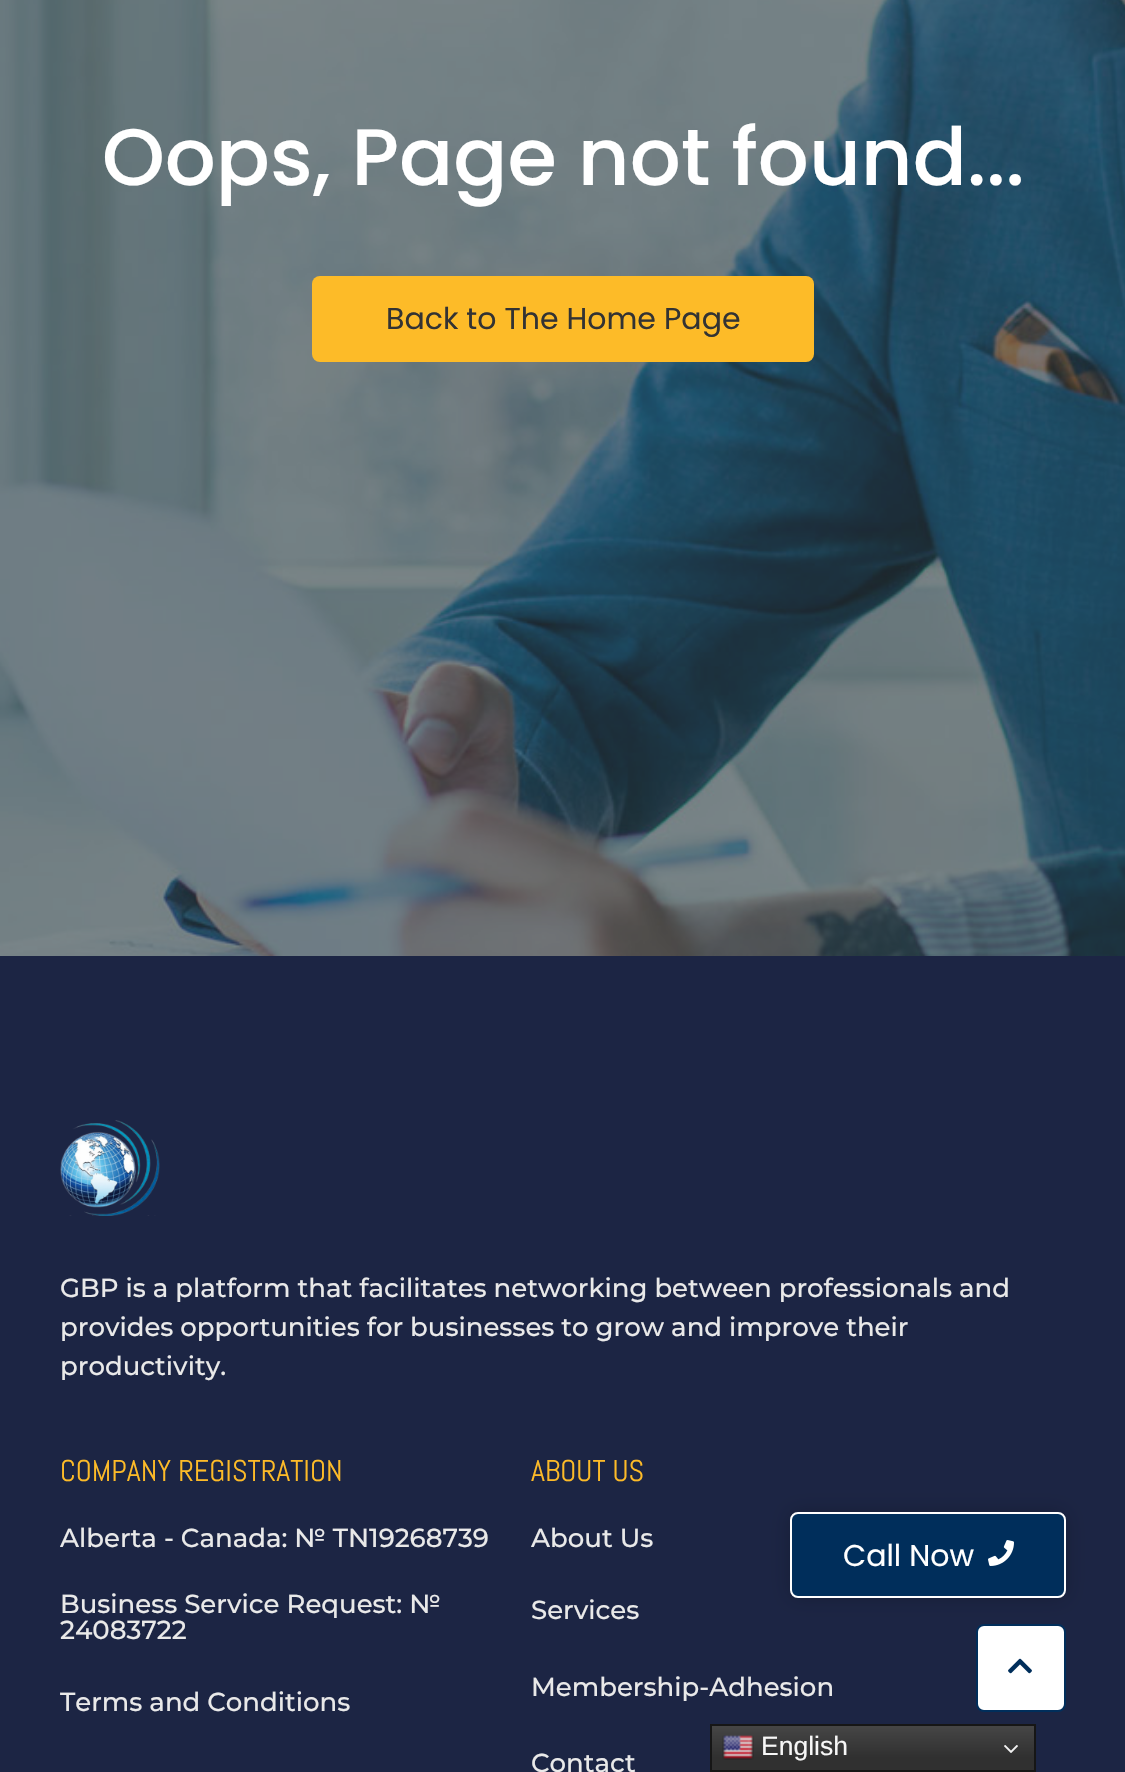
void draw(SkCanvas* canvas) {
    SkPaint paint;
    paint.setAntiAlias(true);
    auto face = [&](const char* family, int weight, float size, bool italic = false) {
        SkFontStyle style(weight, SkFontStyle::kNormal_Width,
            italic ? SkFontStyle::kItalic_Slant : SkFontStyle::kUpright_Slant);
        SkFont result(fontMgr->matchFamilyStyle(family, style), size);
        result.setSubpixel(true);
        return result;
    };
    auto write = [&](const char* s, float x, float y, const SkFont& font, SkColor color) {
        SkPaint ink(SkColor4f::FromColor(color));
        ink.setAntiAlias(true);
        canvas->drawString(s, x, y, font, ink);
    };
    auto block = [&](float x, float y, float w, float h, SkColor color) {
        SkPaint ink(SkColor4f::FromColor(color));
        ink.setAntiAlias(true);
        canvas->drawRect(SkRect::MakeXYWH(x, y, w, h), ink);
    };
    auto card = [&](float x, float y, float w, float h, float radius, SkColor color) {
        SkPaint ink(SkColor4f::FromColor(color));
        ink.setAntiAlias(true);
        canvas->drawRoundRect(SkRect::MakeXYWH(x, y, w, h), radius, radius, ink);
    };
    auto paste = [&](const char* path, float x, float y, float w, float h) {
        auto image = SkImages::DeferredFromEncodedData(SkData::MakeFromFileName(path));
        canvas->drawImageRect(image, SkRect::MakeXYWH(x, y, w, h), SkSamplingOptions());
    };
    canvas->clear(SK_ColorWHITE);
    paste("pic1.png", 0, 0, 1125, 956);
    auto kFont1 = face("Poppins", 500, 80);
    write("Oops, Page not found...", 102, 185, kFont1, SK_ColorWHITE);
    card(312, 276, 502, 86, 8, SkColorSetRGB(253, 187, 40));
    auto kFont2 = face("Poppins", 400, 30);
    write("Back to The Home Page", 386, 329, kFont2, SkColorSetRGB(51, 51, 51));
    block(0, 956, 1125, 816, SkColorSetRGB(28, 37, 68));
    paste("pic2.png", 60, 1120, 100, 96);
    auto kFont3 = face("Montserrat", 500, 26);
    write("GBP is a platform that facilitates networking between professionals and", 60, 1297, kFont3, SkColorSetRGB(233, 233, 233));
    write("provides opportunities for businesses to grow and improve their", 60, 1336, kFont3, SkColorSetRGB(233, 233, 233));
    write("productivity.", 60, 1375, kFont3, SkColorSetRGB(233, 233, 233));
    auto kFont4 = face("Abel", 400, 30);
    write("COMPANY REGISTRATION", 60, 1481, kFont4, SkColorSetRGB(253, 187, 40));
    write("Alberta - Canada: № TN19268739", 60, 1547, kFont3, SkColorSetRGB(233, 233, 233));
    write("Business Service Request: №", 60, 1613, kFont3, SkColorSetRGB(233, 233, 233));
    write("24083722", 60, 1639, kFont3, SkColorSetRGB(233, 233, 233));
    write("Terms and Conditions", 60, 1711, kFont3, SkColorSetRGB(233, 233, 233));
    write("ABOUT US", 531, 1481, kFont4, SkColorSetRGB(253, 187, 40));
    write("About Us", 531, 1547, kFont3, SkColorSetRGB(233, 233, 233));
    write("Services", 531, 1619, kFont3, SkColorSetRGB(233, 233, 233));
    write("Membership-Adhesion", 531, 1696, kFont3, SkColorSetRGB(233, 233, 233));
    write("Contact", 531, 1772, kFont3, SkColorSetRGB(233, 233, 233));
    paint.setColor(SK_ColorWHITE);
    canvas->drawRoundRect(SkRect::MakeXYWH(977, 1625, 88, 86), 7, 7, paint);
    paint.setStyle(SkPaint::kStroke_Style);
    paint.setStrokeWidth(2);
    paint.setColor(SkColorSetRGB(0, 46, 91));
    canvas->drawRoundRect(SkRect::MakeXYWH(977, 1625, 88, 86), 7, 7, paint);
    paint.setStyle(SkPaint::kFill_Style);
    paint.setColor(SkColorSetARGB(51, 0, 0, 0));
    paint.setMaskFilter(SkMaskFilter::MakeBlur(kNormal_SkBlurStyle, 10));
    canvas->drawRoundRect(SkRect::MakeXYWH(790, 1512, 276, 86), 8, 8, paint);
    paint.setMaskFilter(nullptr);
    paint.setColor(SkColorSetRGB(0, 46, 91));
    canvas->drawRoundRect(SkRect::MakeXYWH(791, 1513, 274, 84), 7, 7, paint);
    paint.setStyle(SkPaint::kStroke_Style);
    paint.setColor(SK_ColorWHITE);
    canvas->drawRoundRect(SkRect::MakeXYWH(791, 1513, 274, 84), 7, 7, paint);
    write("Call Now", 843, 1566, kFont2, SK_ColorWHITE);
    paste("pic3.png", 988, 1540, 26, 26);
    paste("pic4.png", 1008, 1658, 24, 16);
    paint.setStyle(SkPaint::kFill_Style);
    {
        const SkColor colors[] = {SkColorSetRGB(71, 71, 71), SkColorSetRGB(48, 48, 48)};
        const float stops[] = {0, 0.7f};
        const SkPoint ends[] = {{873, 1724}, {873, 1772}};
        paint.setShader(SkGradientShader::MakeLinear(ends, colors, stops, 2, SkTileMode::kClamp));
        paint.setAlpha(255);
    }
    canvas->drawRect(SkRect::MakeXYWH(712, 1726, 322, 44), paint);
    paint.setStyle(SkPaint::kStroke_Style);
    paint.setShader(nullptr);
    paint.setColor(SkColorSetRGB(22, 22, 22));
    canvas->drawRect(SkRect::MakeXYWH(711, 1725, 324, 46), paint);
    paste("pic5.png", 722, 1735, 32, 25);
    auto kFont5 = face("Liberation Sans", 400, 26.5f);
    write("English", 761, 1755, kFont5, SkColorSetRGB(247, 247, 247));
    paste("pic6.png", 1004, 1745, 14, 8);
}
